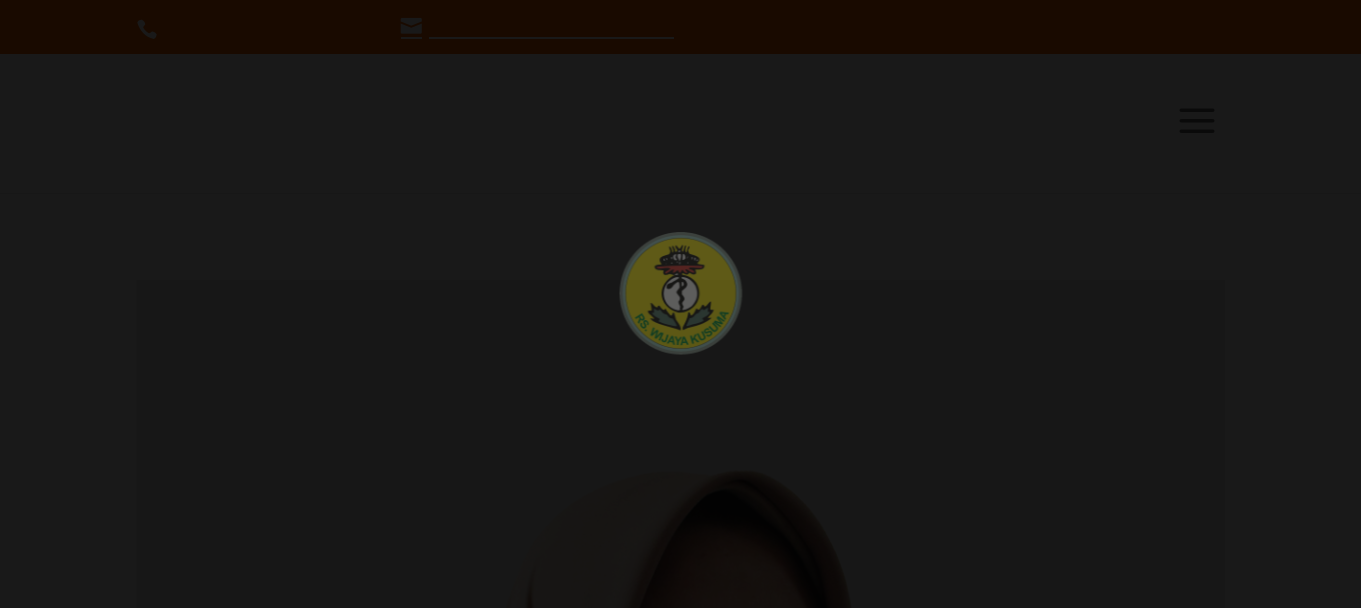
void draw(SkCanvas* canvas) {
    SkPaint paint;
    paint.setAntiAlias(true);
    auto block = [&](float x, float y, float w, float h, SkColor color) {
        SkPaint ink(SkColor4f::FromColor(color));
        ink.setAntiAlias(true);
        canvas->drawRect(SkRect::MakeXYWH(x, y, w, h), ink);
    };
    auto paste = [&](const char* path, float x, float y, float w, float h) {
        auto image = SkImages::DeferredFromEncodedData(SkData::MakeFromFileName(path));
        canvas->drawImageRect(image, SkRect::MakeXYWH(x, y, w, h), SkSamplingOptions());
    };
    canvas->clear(SK_ColorWHITE);
    block(0, 0, 1361, 54, SkColorSetRGB(255, 102, 0));
    paste("pic1.png", 137, 19, 20, 20);
    paste("pic2.png", 400, 17, 22, 17);
    block(401, 37, 21, 2, SK_ColorWHITE);
    block(429, 37, 245, 2, SK_ColorWHITE);
    paint.setColor(SkColorSetRGB(230, 230, 230));
    canvas->drawPath(SkPathBuilder().moveTo(0, 192).lineTo(0, 194).lineTo(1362, 194).lineTo(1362, 54).lineTo(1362, 192).close().detach(), paint);
    block(0, 192, 1361, 1, SK_ColorWHITE);
    paste("pic3.png", 1179, 108, 36, 25);
    paste("pic4.png", 136, 280, 1089, 328);
    block(0, 0, 681, 608, SkColorSetARGB(230, 0, 0, 0));
    block(681, 0, 680, 608, SkColorSetARGB(230, 0, 0, 0));
    paste("pic5.png", 619, 232, 124, 123);
}
